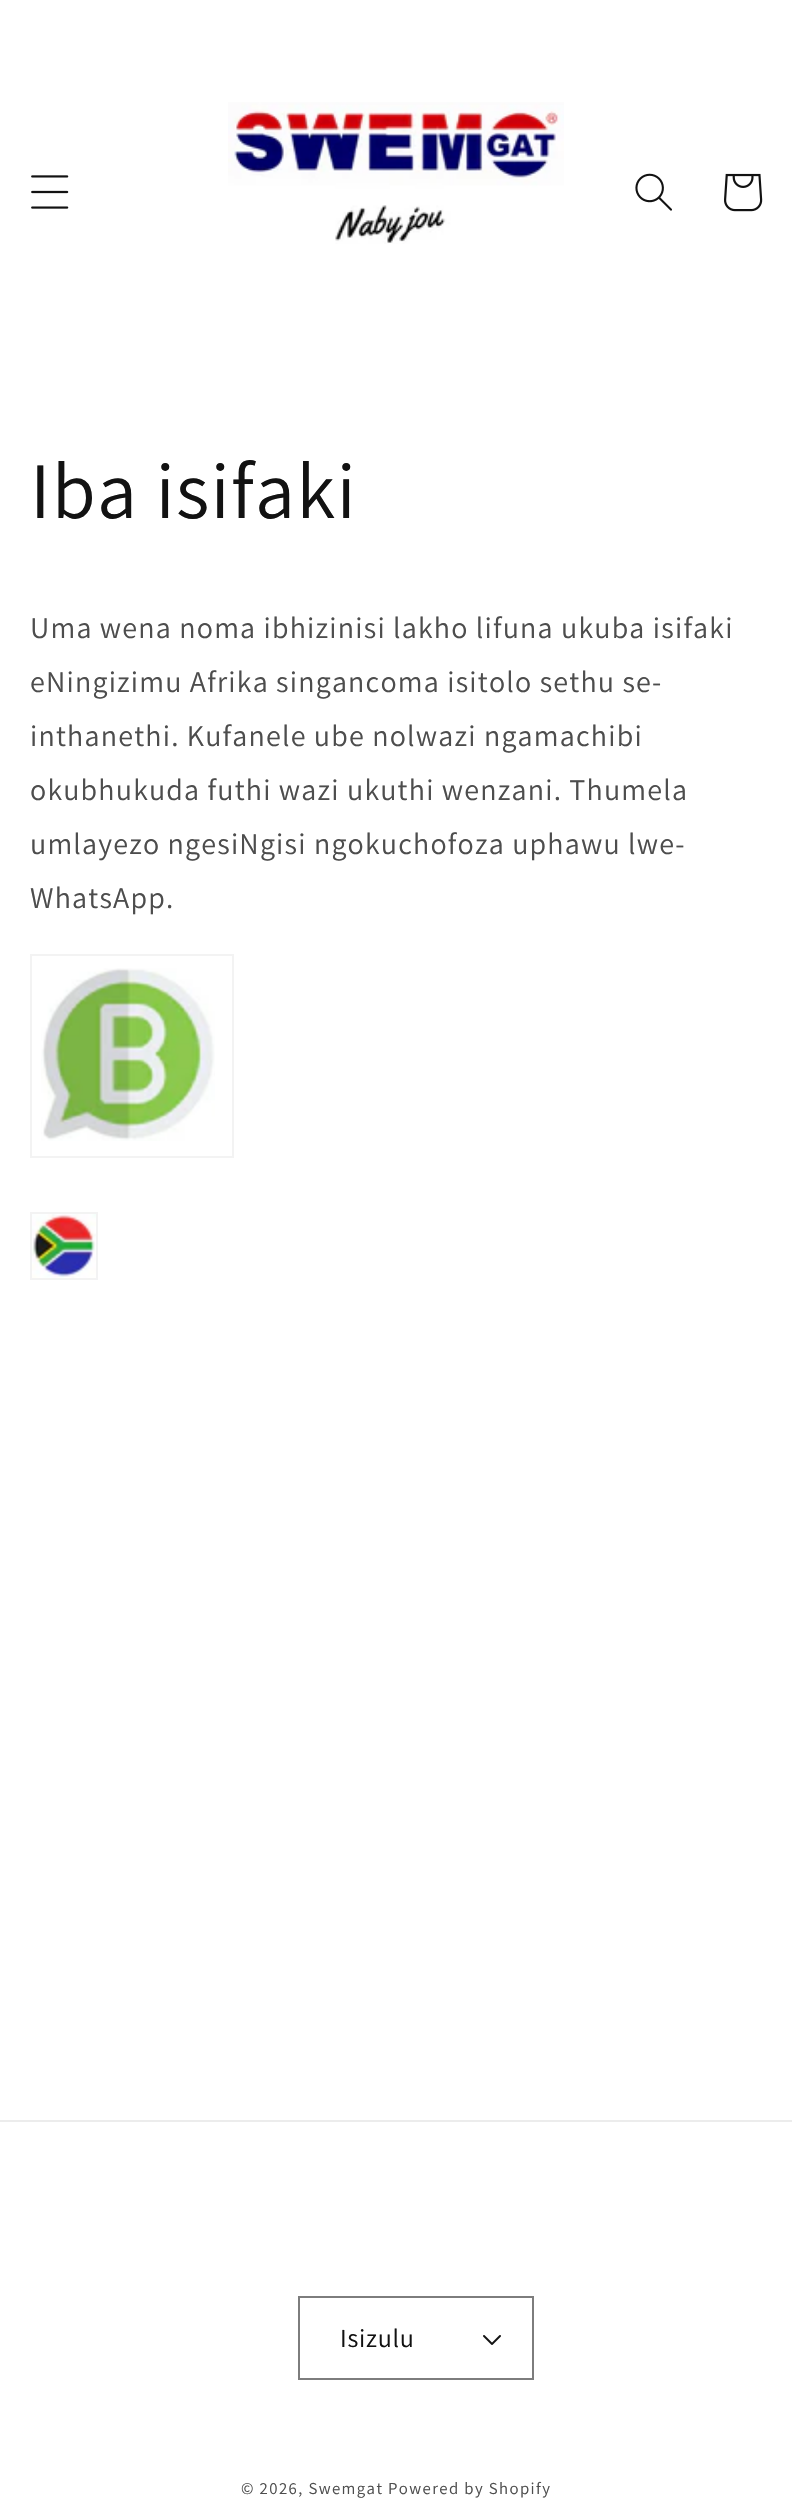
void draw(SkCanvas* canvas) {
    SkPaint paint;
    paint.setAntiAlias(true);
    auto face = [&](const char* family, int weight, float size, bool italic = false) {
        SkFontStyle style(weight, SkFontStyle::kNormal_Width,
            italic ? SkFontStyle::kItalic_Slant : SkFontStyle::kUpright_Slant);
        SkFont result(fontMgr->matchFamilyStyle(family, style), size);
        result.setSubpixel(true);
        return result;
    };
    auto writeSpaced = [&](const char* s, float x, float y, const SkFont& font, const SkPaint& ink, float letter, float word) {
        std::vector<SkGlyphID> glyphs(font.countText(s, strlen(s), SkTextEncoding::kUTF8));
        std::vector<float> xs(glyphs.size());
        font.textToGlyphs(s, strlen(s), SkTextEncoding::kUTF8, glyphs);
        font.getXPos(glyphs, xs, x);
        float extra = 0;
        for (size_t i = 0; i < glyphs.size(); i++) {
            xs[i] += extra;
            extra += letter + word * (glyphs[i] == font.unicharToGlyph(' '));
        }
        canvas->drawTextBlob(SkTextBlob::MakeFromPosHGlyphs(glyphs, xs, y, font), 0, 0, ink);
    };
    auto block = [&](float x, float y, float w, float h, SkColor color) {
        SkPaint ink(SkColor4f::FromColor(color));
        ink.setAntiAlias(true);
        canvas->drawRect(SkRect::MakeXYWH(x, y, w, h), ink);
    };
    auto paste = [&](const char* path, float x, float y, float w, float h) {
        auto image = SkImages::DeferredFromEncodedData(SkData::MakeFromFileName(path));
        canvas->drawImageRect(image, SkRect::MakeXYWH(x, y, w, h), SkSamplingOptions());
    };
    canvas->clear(SK_ColorWHITE);
    paste("pic1.png", 31, 175, 38, 34);
    paste("pic2.png", 228, 102, 336, 142);
    paste("pic3.png", 635, 173, 37, 38);
    paste("pic4.png", 724, 173, 39, 39);
    auto kFont1 = face("Assistant", 400, 80);
    paint.setColor(SkColorSetRGB(18, 18, 18));
    writeSpaced("Iba isifaki", 30, 518, kFont1, paint, 1.2f, 0);
    auto kFont2 = face("Assistant", 400, 30);
    paint.setColor(SkColorSetRGB(77, 77, 77));
    writeSpaced("Uma wena noma ibhizinisi lakho lifuna ukuba isifaki", 30, 638, kFont2, paint, 1.2f, 0);
    writeSpaced("eNingizimu Afrika singancoma isitolo sethu se-", 30, 692, kFont2, paint, 1.2f, 0);
    writeSpaced("inthanethi. Kufanele ube nolwazi ngamachibi", 30, 746, kFont2, paint, 1.2f, 0);
    writeSpaced("okubhukuda futhi wazi ukuthi wenzani. Thumela", 30, 800, kFont2, paint, 1.2f, 0);
    writeSpaced("umlayezo ngesiNgisi ngokuchofoza uphawu lwe-", 30, 854, kFont2, paint, 1.2f, 0);
    writeSpaced("WhatsApp.", 30, 908, kFont2, paint, 1.2f, 0);
    paint.setStyle(SkPaint::kStroke_Style);
    paint.setStrokeWidth(2);
    paint.setColor(SkColorSetRGB(243, 243, 243));
    canvas->drawRect(SkRect::MakeXYWH(31, 955, 202, 202), paint);
    paste("pic5.png", 41, 968, 174, 173);
    canvas->drawRect(SkRect::MakeXYWH(31, 1213, 66, 66), paint);
    paste("pic6.png", 32, 1214, 64, 64);
    block(0, 2120, 792, 2, SkColorSetRGB(236, 236, 236));
    paste("pic7.png", 483, 2335, 18, 10);
    paint.setColor(SkColorSetRGB(125, 125, 125));
    canvas->drawRect(SkRect::MakeXYWH(299, 2297, 234, 82), paint);
    auto kFont3 = face("Assistant", 400, 26);
    paint.setStyle(SkPaint::kFill_Style);
    paint.setColor(SkColorSetRGB(18, 18, 18));
    writeSpaced("Isizulu", 340, 2347, kFont3, paint, 0.75f, 0);
    auto kFont4 = face("Assistant", 400, 16.75f);
    paint.setColor(SkColorSetRGB(77, 77, 77));
    writeSpaced("© 2026, Swemgat", 241, 2494, kFont4, paint, 1.4f, 0);
    writeSpaced("Powered by Shopify", 388, 2494, kFont4, paint, 1.4f, 0);
}
